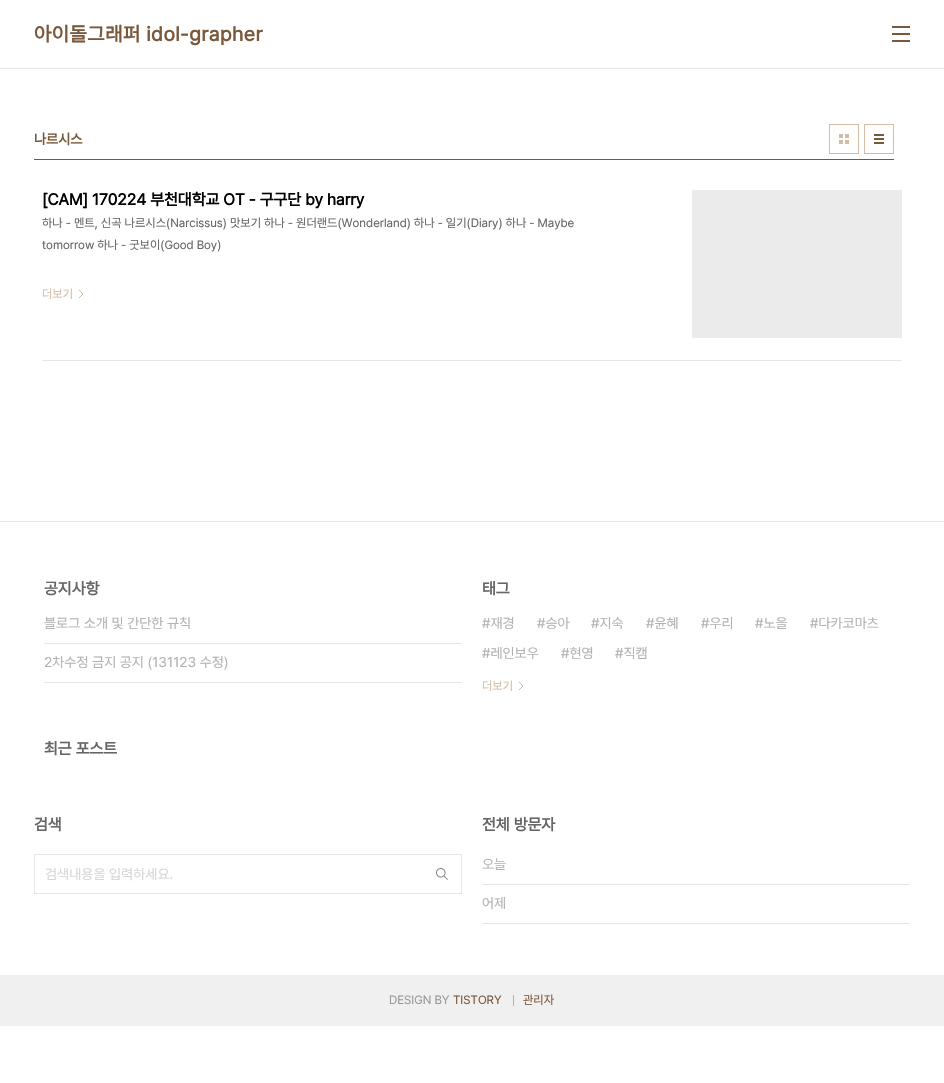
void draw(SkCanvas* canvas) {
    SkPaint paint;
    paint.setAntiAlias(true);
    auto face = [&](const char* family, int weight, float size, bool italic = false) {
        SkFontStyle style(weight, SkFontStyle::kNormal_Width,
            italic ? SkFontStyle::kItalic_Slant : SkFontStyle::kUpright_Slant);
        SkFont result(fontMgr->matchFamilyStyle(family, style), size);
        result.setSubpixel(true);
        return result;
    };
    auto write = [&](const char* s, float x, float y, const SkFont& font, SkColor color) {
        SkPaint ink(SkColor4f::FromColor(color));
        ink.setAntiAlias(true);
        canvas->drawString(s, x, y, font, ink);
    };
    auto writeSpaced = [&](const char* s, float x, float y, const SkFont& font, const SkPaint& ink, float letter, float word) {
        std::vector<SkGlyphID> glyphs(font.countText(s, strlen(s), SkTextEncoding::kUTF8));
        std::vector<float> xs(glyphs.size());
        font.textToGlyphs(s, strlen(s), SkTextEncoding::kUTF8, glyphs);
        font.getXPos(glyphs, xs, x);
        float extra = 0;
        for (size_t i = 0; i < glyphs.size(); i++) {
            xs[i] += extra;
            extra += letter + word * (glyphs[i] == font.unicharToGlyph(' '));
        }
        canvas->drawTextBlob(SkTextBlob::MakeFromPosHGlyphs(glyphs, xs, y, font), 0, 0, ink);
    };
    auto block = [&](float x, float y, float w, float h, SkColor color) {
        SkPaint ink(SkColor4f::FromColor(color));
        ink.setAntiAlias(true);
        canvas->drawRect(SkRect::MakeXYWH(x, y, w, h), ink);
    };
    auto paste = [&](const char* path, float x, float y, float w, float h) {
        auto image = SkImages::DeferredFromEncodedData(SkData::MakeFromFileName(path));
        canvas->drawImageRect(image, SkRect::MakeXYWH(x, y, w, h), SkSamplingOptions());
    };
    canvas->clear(SK_ColorWHITE);
    block(0, 68, 944, 1, SkColorSetRGB(230, 230, 230));
    auto kFont1 = face("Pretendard", 700, 20);
    paint.setColor(SkColorSetRGB(122, 88, 58));
    writeSpaced("아이돌그래퍼 idol-grapher", 34, 41, kFont1, paint, 0.5f, 0);
    block(892, 26, 18, 2, SkColorSetRGB(122, 88, 58));
    block(892, 33, 18, 2, SkColorSetRGB(122, 88, 58));
    block(892, 40, 18, 2, SkColorSetRGB(122, 88, 58));
    block(34, 159, 860, 1, SkColorSetRGB(122, 88, 58));
    auto kFont2 = face("Pretendard", 700, 14);
    write("나르시스", 34, 144, kFont2, SkColorSetRGB(122, 88, 58));
    paste("pic1.png", 839, 134, 10, 10);
    paint.setStyle(SkPaint::kStroke_Style);
    paint.setStrokeWidth(1);
    paint.setColor(SkColorSetRGB(212, 188, 167));
    canvas->drawRect(SkRect::MakeXYWH(829.5f, 124.5f, 29, 29), paint);
    paste("pic2.png", 874, 134, 10, 10);
    canvas->drawRect(SkRect::MakeXYWH(864.5f, 124.5f, 29, 29), paint);
    block(42, 360, 860, 1, SkColorSetRGB(230, 230, 230));
    auto kFont3 = face("Pretendard", 700, 16);
    write("[CAM] 170224 부천대학교 OT - 구구단 by harry", 42, 205, kFont3, SK_ColorBLACK);
    block(692, 190, 210, 148, SkColorSetRGB(235, 235, 235));
    auto kFont4 = face("Pretendard", 400, 12);
    write("하나 - 멘트, 신곡 나르시스(Narcissus) 맛보기 하나 - 원더랜드(Wonderland) 하나 - 일기(Diary) 하나 - Maybe", 42, 227, kFont4, SkColorSetRGB(102, 102, 102));
    write("tomorrow 하나 - 굿보이(Good Boy)", 42, 249, kFont4, SkColorSetRGB(102, 102, 102));
    write("더보기", 42, 298, kFont4, SkColorSetRGB(212, 188, 167));
    paste("pic3.png", 79, 290, 4, 8);
    block(0, 521, 944, 1, SkColorSetRGB(230, 230, 230));
    write("공지사항", 44, 594, kFont3, SkColorSetRGB(102, 102, 102));
    block(44, 643, 418, 1, SkColorSetRGB(230, 230, 230));
    auto kFont5 = face("Pretendard", 400, 14);
    write("블로그 소개 및 간단한 규칙", 44, 628, kFont5, SkColorSetRGB(178, 178, 178));
    block(44, 682, 418, 1, SkColorSetRGB(230, 230, 230));
    write("2차수정 금지 공지 (131123 수정)", 44, 667, kFont5, SkColorSetRGB(178, 178, 178));
    write("최근 포스트", 44, 754, kFont3, SkColorSetRGB(102, 102, 102));
    write("태그", 482, 594, kFont3, SkColorSetRGB(102, 102, 102));
    write("#재경", 482, 628, kFont5, SkColorSetRGB(178, 178, 178));
    write("#승아", 537, 628, kFont5, SkColorSetRGB(178, 178, 178));
    write("#지숙", 591, 628, kFont5, SkColorSetRGB(178, 178, 178));
    write("#윤혜", 646, 628, kFont5, SkColorSetRGB(178, 178, 178));
    write("#우리", 701, 628, kFont5, SkColorSetRGB(178, 178, 178));
    write("#노을", 755, 628, kFont5, SkColorSetRGB(178, 178, 178));
    write("#다카코마츠", 810, 628, kFont5, SkColorSetRGB(178, 178, 178));
    write("#레인보우", 482, 658, kFont5, SkColorSetRGB(178, 178, 178));
    write("#현영", 561, 658, kFont5, SkColorSetRGB(178, 178, 178));
    write("#직캠", 615, 658, kFont5, SkColorSetRGB(178, 178, 178));
    write("더보기", 482, 690, kFont4, SkColorSetRGB(212, 188, 167));
    paste("pic3.png", 519, 682, 4, 8);
    write("검색", 34, 830, kFont3, SkColorSetRGB(102, 102, 102));
    paint.setColor(SkColorSetRGB(230, 230, 230));
    canvas->drawRect(SkRect::MakeXYWH(34.5f, 854.5f, 427, 39), paint);
    write("검색내용을 입력하세요.", 45, 879, kFont5, SkColorSetRGB(214, 214, 214));
    paste("pic4.png", 436, 868, 12, 12);
    write("전체 방문자", 482, 830, kFont3, SkColorSetRGB(102, 102, 102));
    block(482, 884, 428, 1, SkColorSetRGB(230, 230, 230));
    write("오늘", 482, 869, kFont5, SkColorSetRGB(178, 178, 178));
    block(482, 923, 428, 1, SkColorSetRGB(230, 230, 230));
    write("어제", 482, 908, kFont5, SkColorSetRGB(178, 178, 178));
    block(0, 975, 944, 51, SkColorSetRGB(240, 240, 240));
    write("DESIGN BY", 389, 1004, kFont4, SkColorSetRGB(153, 153, 153));
    write("TISTORY", 453, 1004, kFont4, SkColorSetRGB(122, 88, 58));
    block(513, 995, 1, 11, SkColorSetRGB(178, 178, 178));
    write("관리자", 523, 1004, kFont4, SkColorSetRGB(122, 88, 58));
}
